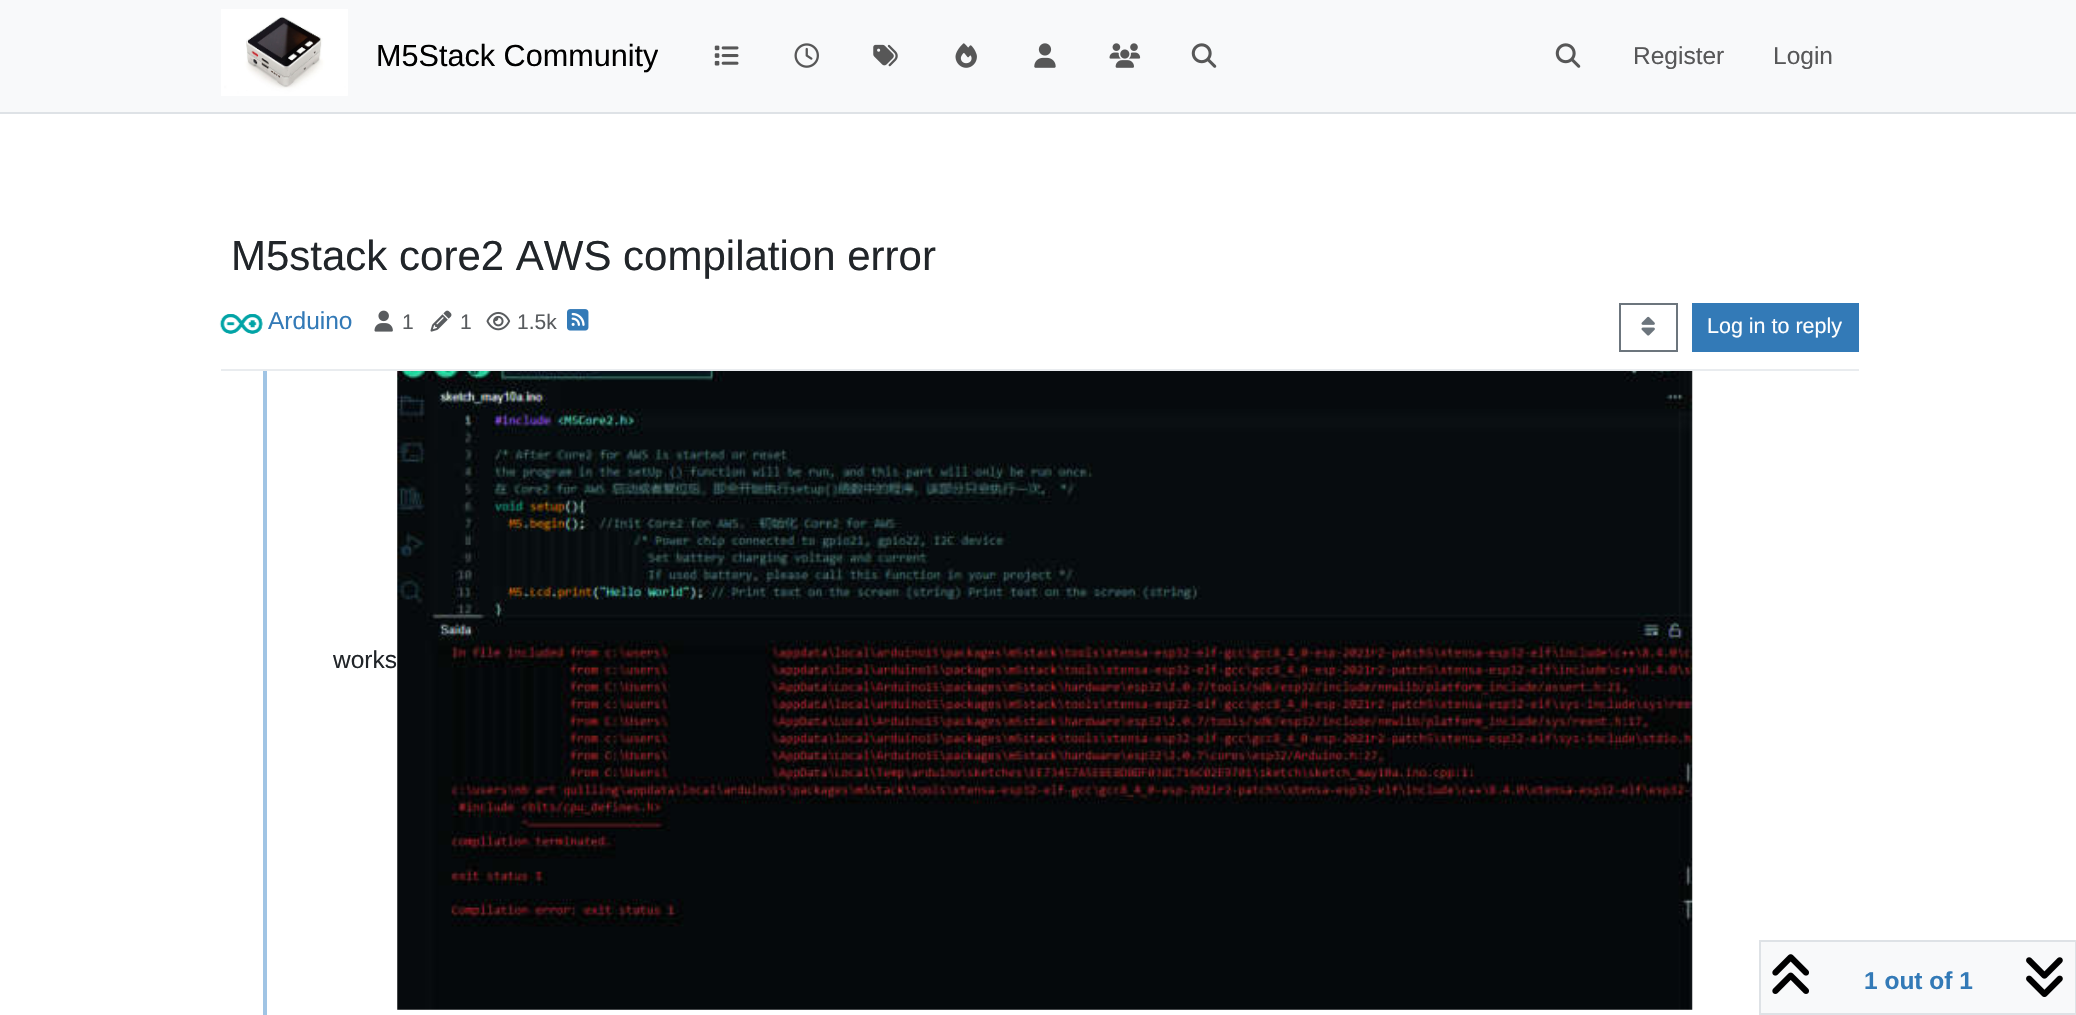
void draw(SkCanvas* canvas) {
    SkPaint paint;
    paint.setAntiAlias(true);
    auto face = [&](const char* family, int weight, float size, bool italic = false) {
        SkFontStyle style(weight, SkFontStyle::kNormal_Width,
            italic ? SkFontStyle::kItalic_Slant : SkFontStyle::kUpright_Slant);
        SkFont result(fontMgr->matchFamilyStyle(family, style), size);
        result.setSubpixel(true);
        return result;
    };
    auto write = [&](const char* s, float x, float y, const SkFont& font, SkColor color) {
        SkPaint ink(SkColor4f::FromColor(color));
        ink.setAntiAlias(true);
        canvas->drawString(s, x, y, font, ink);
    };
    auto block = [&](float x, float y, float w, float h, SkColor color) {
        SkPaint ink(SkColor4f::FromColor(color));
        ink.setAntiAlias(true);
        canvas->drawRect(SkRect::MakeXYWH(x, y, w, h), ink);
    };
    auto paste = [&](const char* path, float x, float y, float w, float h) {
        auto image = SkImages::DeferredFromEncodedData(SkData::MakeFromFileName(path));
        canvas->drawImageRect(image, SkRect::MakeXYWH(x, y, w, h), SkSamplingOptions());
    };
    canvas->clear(SK_ColorWHITE);
    block(0, 0, 2076, 112, SkColorSetRGB(248, 249, 250));
    block(0, 112, 2076, 2, SkColorSetRGB(222, 226, 230));
    paste("pic1.png", 221, 9, 127, 87);
    canvas->save();
    canvas->clipRect(SkRect::MakeXYWH(376, 25, 282, 64));
    auto kFont1 = face("Liberation Sans", 400, 30.6f);
    write("M5Stack Community", 376, 66, kFont1, SK_ColorBLACK);
    canvas->restore();
    paste("pic2.png", 714, 45, 25, 21);
    paste("pic3.png", 794, 43, 25, 25);
    paste("pic4.png", 873, 44, 25, 23);
    paste("pic5.png", 955, 43, 22, 25);
    paste("pic6.png", 1034, 43, 22, 25);
    paste("pic7.png", 1109, 43, 32, 25);
    paste("pic8.png", 1191, 43, 26, 25);
    paste("pic8.png", 1555, 43, 26, 25);
    auto kFont2 = face("Liberation Sans", 400, 24.5f);
    write("Register", 1633, 64, kFont2, SkColorSetRGB(87, 87, 88));
    write("Login", 1773, 64, kFont2, SkColorSetRGB(87, 87, 88));
    auto kFont3 = face("Liberation Sans", 400, 42);
    write("M5stack core2 AWS compilation error", 231, 270, kFont3, SkColorSetRGB(33, 37, 41));
    block(221, 369, 1638, 2, SkColorSetRGB(233, 236, 239));
    paste("pic9.png", 219, 314, 44, 20);
    write("Arduino", 268, 329, kFont2, SkColorSetRGB(51, 122, 183));
    paste("pic10.png", 374, 310, 19, 22);
    auto kFont4 = face("Liberation Sans", 400, 21);
    write("1", 402, 329, kFont4, SkColorSetRGB(89, 92, 95));
    paste("pic11.png", 430, 310, 22, 22);
    write("1", 460, 329, kFont4, SkColorSetRGB(89, 92, 95));
    paste("pic12.png", 486, 311, 25, 20);
    write("1.5k", 517, 329, kFont4, SkColorSetRGB(89, 92, 95));
    paste("pic13.png", 567, 309, 22, 22);
    paint.setStyle(SkPaint::kStroke_Style);
    paint.setStrokeWidth(2);
    paint.setColor(SkColorSetRGB(108, 117, 125));
    canvas->drawRect(SkRect::MakeXYWH(1620, 304, 57, 47), paint);
    paste("pic14.png", 1641, 316, 14, 20);
    block(1692, 303, 167, 49, SkColorSetRGB(51, 122, 183));
    auto kFont5 = face("Liberation Sans", 400, 21.5f);
    write("Log in to reply", 1707, 333, kFont5, SK_ColorWHITE);
    block(263, 371, 4, 644, SkColorSetRGB(160, 196, 228));
    write("works", 333, 668, kFont2, SkColorSetRGB(33, 37, 41));
    paste("pic15.png", 397, 371, 1296, 639);
    paint.setStyle(SkPaint::kFill_Style);
    paint.setColor(SkColorSetRGB(248, 249, 250));
    canvas->drawRect(SkRect::MakeXYWH(1760, 941, 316, 73), paint);
    paint.setStyle(SkPaint::kStroke_Style);
    paint.setColor(SkColorSetRGB(222, 226, 230));
    canvas->drawRect(SkRect::MakeXYWH(1760, 941, 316, 73), paint);
    paste("pic16.png", 1772, 954, 37, 40);
    auto kFont6 = face("Liberation Sans", 700, 24.5f);
    write("1 out of 1", 1864, 989, kFont6, SkColorSetRGB(51, 122, 183));
    paste("pic17.png", 2026, 957, 37, 40);
}
